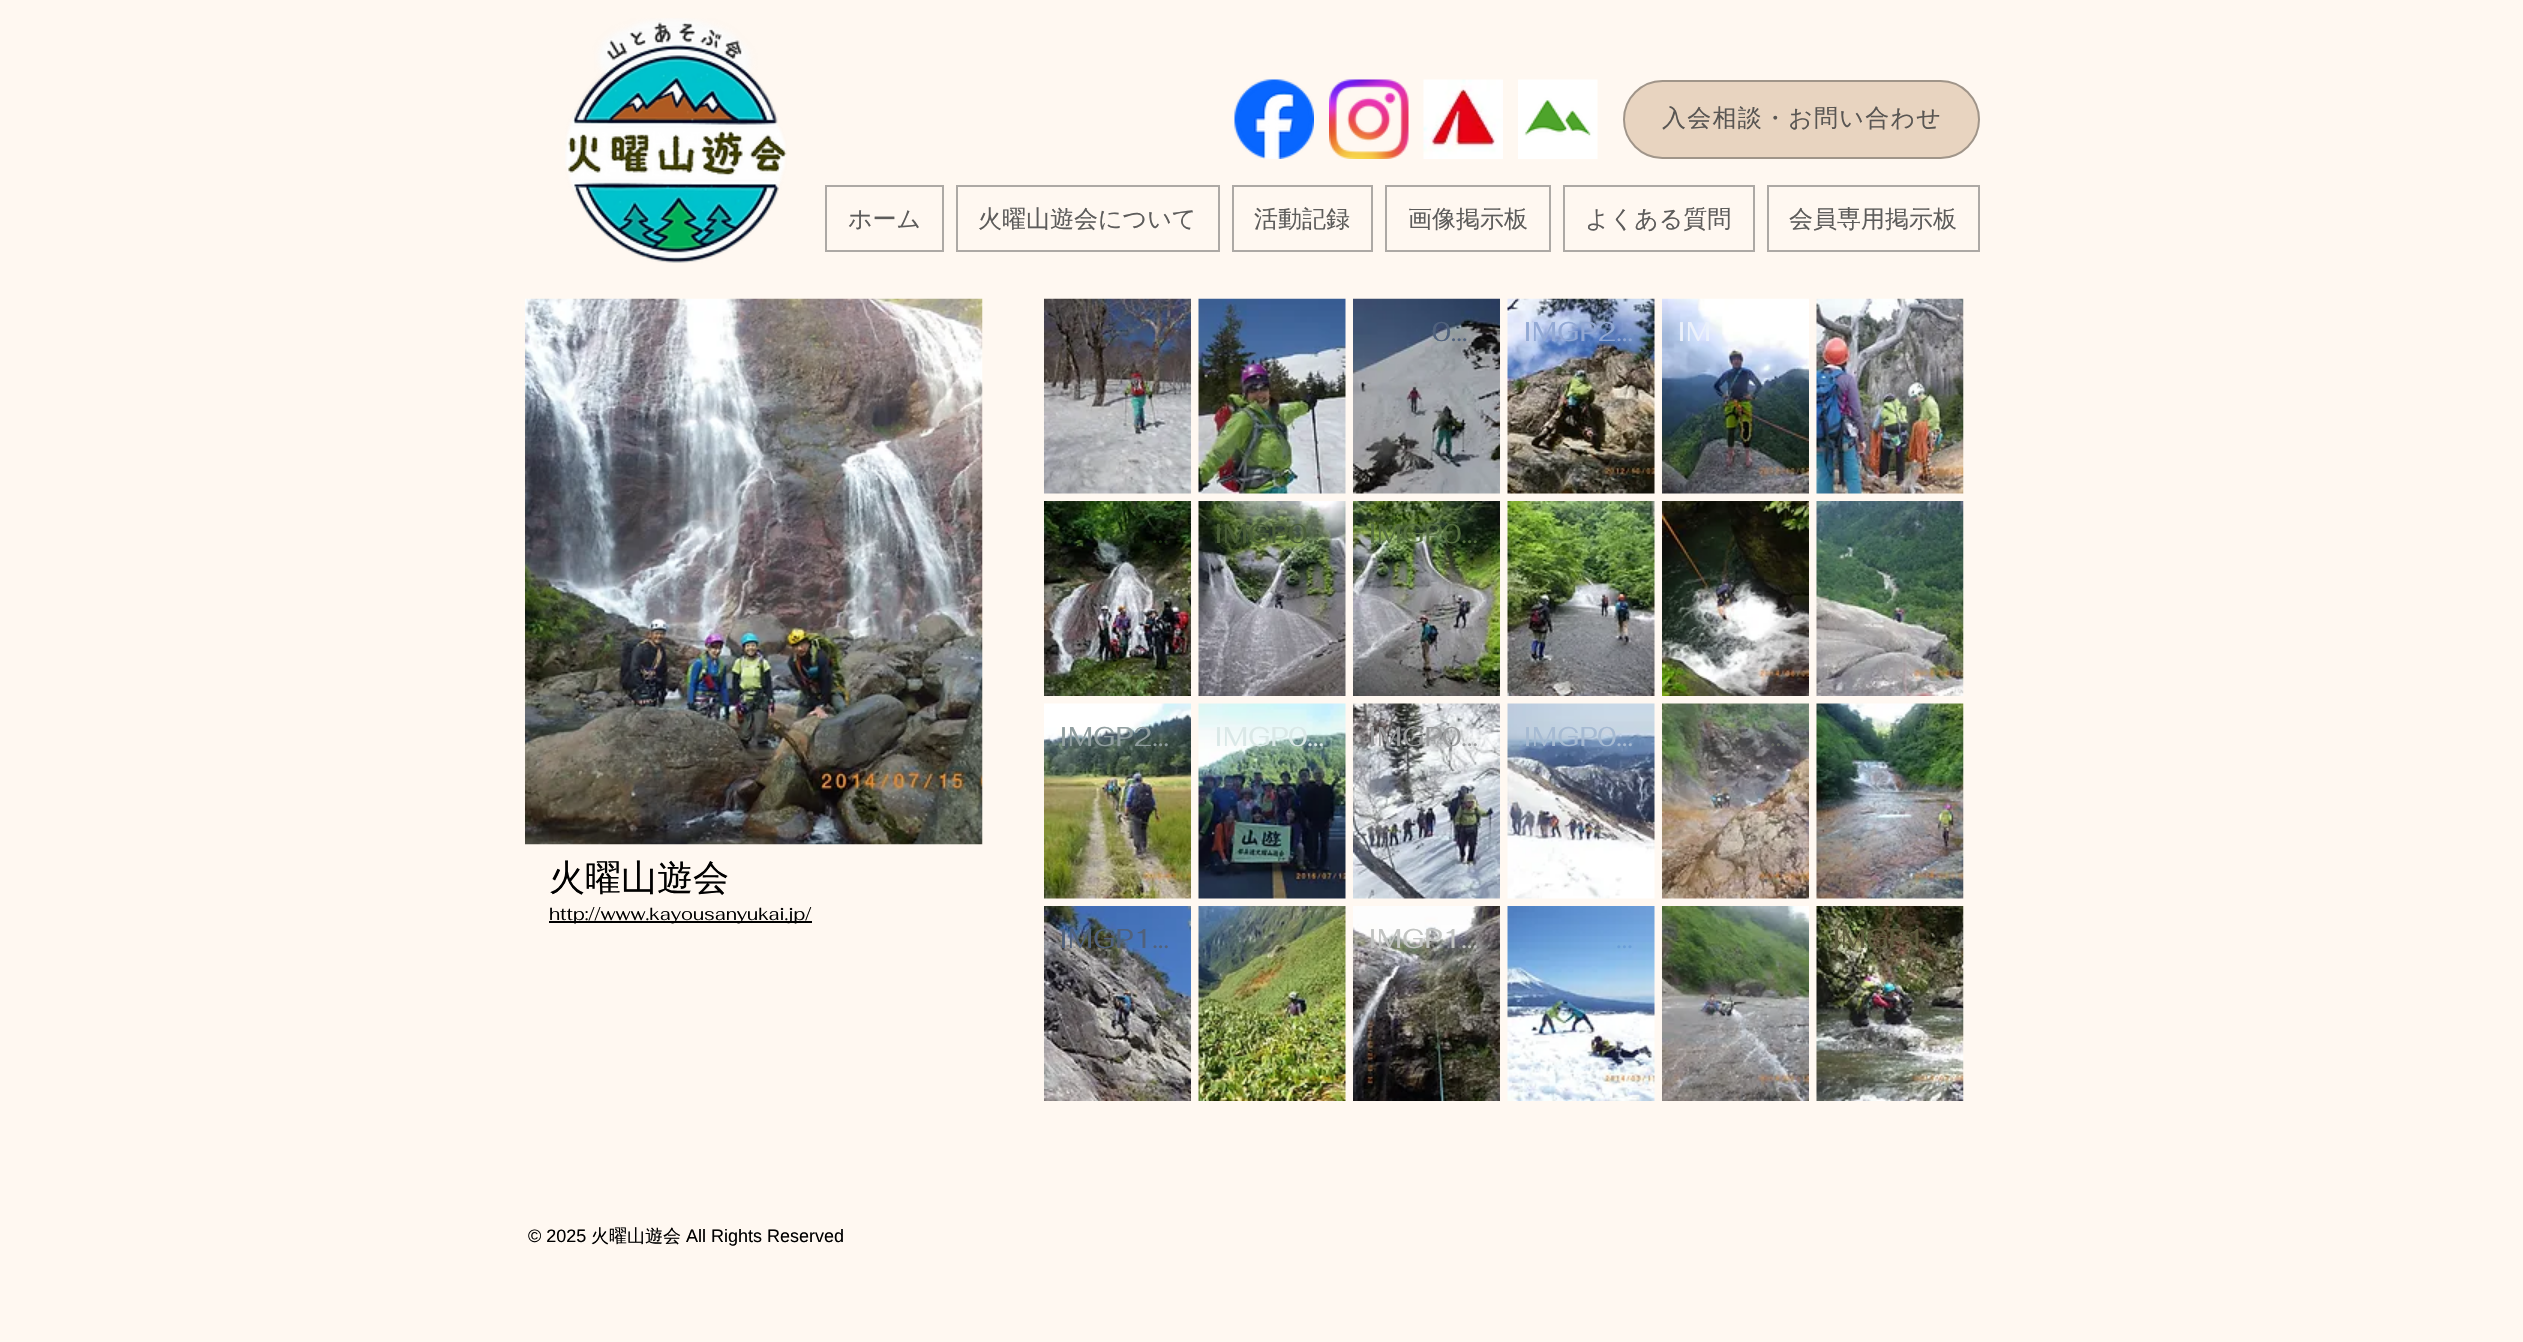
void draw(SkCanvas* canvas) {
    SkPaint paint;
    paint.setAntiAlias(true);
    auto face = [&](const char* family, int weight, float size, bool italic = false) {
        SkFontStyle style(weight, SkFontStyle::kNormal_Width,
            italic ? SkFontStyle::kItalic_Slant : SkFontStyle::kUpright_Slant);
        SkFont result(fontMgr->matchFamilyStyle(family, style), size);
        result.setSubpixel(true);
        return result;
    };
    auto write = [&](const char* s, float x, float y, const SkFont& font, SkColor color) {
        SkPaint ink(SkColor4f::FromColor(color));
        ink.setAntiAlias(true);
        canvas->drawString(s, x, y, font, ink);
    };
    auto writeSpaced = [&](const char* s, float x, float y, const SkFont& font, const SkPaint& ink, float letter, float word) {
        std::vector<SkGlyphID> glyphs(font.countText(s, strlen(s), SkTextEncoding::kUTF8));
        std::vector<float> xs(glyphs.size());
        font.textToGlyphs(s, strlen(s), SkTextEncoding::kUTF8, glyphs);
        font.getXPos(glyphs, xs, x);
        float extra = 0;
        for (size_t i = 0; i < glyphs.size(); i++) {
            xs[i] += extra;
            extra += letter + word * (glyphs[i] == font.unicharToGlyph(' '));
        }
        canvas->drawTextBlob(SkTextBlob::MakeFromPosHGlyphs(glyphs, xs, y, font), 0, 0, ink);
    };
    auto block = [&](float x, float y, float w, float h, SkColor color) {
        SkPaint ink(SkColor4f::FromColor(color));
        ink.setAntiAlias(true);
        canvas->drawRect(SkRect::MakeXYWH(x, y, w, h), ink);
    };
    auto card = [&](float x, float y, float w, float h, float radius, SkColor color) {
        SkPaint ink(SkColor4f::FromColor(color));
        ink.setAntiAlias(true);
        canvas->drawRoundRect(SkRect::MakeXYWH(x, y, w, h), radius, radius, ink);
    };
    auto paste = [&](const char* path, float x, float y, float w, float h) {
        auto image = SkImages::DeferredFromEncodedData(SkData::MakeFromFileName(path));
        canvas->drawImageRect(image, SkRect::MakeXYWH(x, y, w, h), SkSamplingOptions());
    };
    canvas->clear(SkColorSetRGB(255, 248, 241));
    paste("pic1.png", 565, 18, 222, 245);
    paste("pic2.png", 1234, 79, 80, 80);
    paste("pic3.png", 1329, 79, 80, 80);
    paste("pic4.png", 1423, 79, 80, 80);
    paste("pic5.png", 1518, 79, 80, 80);
    card(1623, 80, 357, 79, 39.5f, SkColorSetRGB(232, 212, 192));
    paint.setStyle(SkPaint::kStroke_Style);
    paint.setStrokeWidth(2);
    paint.setColor(SkColorSetARGB(110, 64, 64, 64));
    canvas->drawRoundRect(SkRect::MakeXYWH(1624, 81, 355, 77), 38.5f, 38.5f, paint);
    auto kFont1 = face("WenQuanYi Zen Hei", 500, 24);
    paint.setStyle(SkPaint::kFill_Style);
    paint.setColor(SkColorSetRGB(89, 86, 83));
    writeSpaced("入会相談・お問い合わせ", 1662, 126, kFont1, paint, 1.25f, 0);
    paint.setStyle(SkPaint::kStroke_Style);
    paint.setColor(SkColorSetRGB(173, 169, 165));
    canvas->drawRect(SkRect::MakeXYWH(826, 186, 117, 65), paint);
    write("ホーム", 848, 227, kFont1, SkColorSetRGB(93, 92, 91));
    canvas->drawRect(SkRect::MakeXYWH(957, 186, 262, 65), paint);
    write("火曜山遊会について", 978, 227, kFont1, SkColorSetRGB(93, 92, 91));
    canvas->drawRect(SkRect::MakeXYWH(1233, 186, 139, 65), paint);
    write("活動記録", 1254, 227, kFont1, SkColorSetRGB(93, 92, 91));
    canvas->drawRect(SkRect::MakeXYWH(1386, 186, 164, 65), paint);
    write("画像掲示板", 1408, 227, kFont1, SkColorSetRGB(93, 92, 91));
    canvas->drawRect(SkRect::MakeXYWH(1564, 186, 190, 65), paint);
    write("よくある質問", 1585, 227, kFont1, SkColorSetRGB(93, 92, 91));
    canvas->drawRect(SkRect::MakeXYWH(1768, 186, 211, 65), paint);
    write("会員専用掲示板", 1789, 227, kFont1, SkColorSetRGB(93, 92, 91));
    paste("pic6.png", 525, 298, 458, 547);
    paste("pic7.png", 1044, 298, 147, 196);
    paste("pic8.png", 1198, 298, 148, 196);
    paste("pic9.png", 1353, 298, 147, 196);
    auto kFont2 = face("Fahkwang", 400, 27);
    write("0…", 1432, 341, kFont2, SkColorSetRGB(80, 97, 124));
    paste("pic10.png", 1507, 298, 148, 196);
    write("IMGP2…", 1523, 341, kFont2, SkColorSetRGB(146, 168, 211));
    paste("pic11.png", 1662, 298, 147, 196);
    write("IM", 1677, 341, kFont2, SkColorSetRGB(235, 241, 251));
    paste("pic12.png", 1816, 298, 148, 196);
    paste("pic13.png", 1044, 501, 147, 195);
    write("…", 1152, 543, kFont2, SkColorSetRGB(30, 50, 22));
    paste("pic14.png", 1198, 501, 148, 195);
    write("IMGP0…", 1214, 543, kFont2, SkColorSetRGB(75, 94, 57));
    paste("pic15.png", 1353, 501, 147, 195);
    write("IMGP0…", 1368, 543, kFont2, SkColorSetRGB(87, 111, 66));
    paste("pic16.png", 1507, 501, 148, 195);
    paste("pic17.png", 1662, 501, 147, 195);
    paste("pic18.png", 1816, 501, 148, 195);
    paste("pic19.png", 1044, 703, 147, 196);
    write("IMGP2…", 1059, 746, kFont2, SkColorSetRGB(145, 158, 159));
    paste("pic20.png", 1198, 703, 148, 196);
    write("IMGP0…", 1214, 746, kFont2, SkColorSetRGB(218, 232, 231));
    paste("pic21.png", 1353, 703, 147, 196);
    write("IMGP0…", 1368, 746, kFont2, SkColorSetRGB(153, 154, 155));
    paste("pic22.png", 1507, 703, 148, 196);
    write("IMGP0…", 1523, 746, kFont2, SkColorSetRGB(166, 186, 210));
    paste("pic23.png", 1662, 703, 147, 196);
    write("…", 1770, 746, kFont2, SkColorSetRGB(104, 108, 100));
    paste("pic24.png", 1816, 703, 148, 196);
    paste("pic25.png", 1044, 906, 147, 195);
    write("IMGP1…", 1059, 948, kFont2, SkColorSetRGB(80, 97, 124));
    paste("pic26.png", 1198, 906, 148, 195);
    paste("pic27.png", 1353, 906, 147, 195);
    write("IMGP1…", 1368, 948, kFont2, SkColorSetRGB(193, 195, 193));
    paste("pic28.png", 1507, 906, 148, 195);
    write("…", 1616, 948, kFont2, SkColorSetRGB(105, 158, 217));
    paste("pic29.png", 1662, 906, 147, 195);
    paste("pic30.png", 1816, 906, 148, 195);
    write("IMGP1…", 1832, 948, kFont2, SkColorSetRGB(95, 92, 64));
    auto kFont3 = face("WenQuanYi Zen Hei", 500, 36);
    write("火曜山遊会", 549, 890, kFont3, SK_ColorBLACK);
    block(549, 921, 263, 2, SK_ColorBLACK);
    auto kFont4 = face("Fahkwang", 400, 18);
    write("http://www.kayousanyukai.jp/", 549, 920, kFont4, SK_ColorBLACK);
    auto kFont5 = face("Liberation Sans", 400, 18);
    write("© 2025", 528, 1242, kFont5, SK_ColorBLACK);
    auto kFont6 = face("WenQuanYi Zen Hei", 500, 18);
    write("火曜山遊会", 591, 1242, kFont6, SK_ColorBLACK);
    write("All Rights Reserved", 686, 1242, kFont5, SK_ColorBLACK);
}
